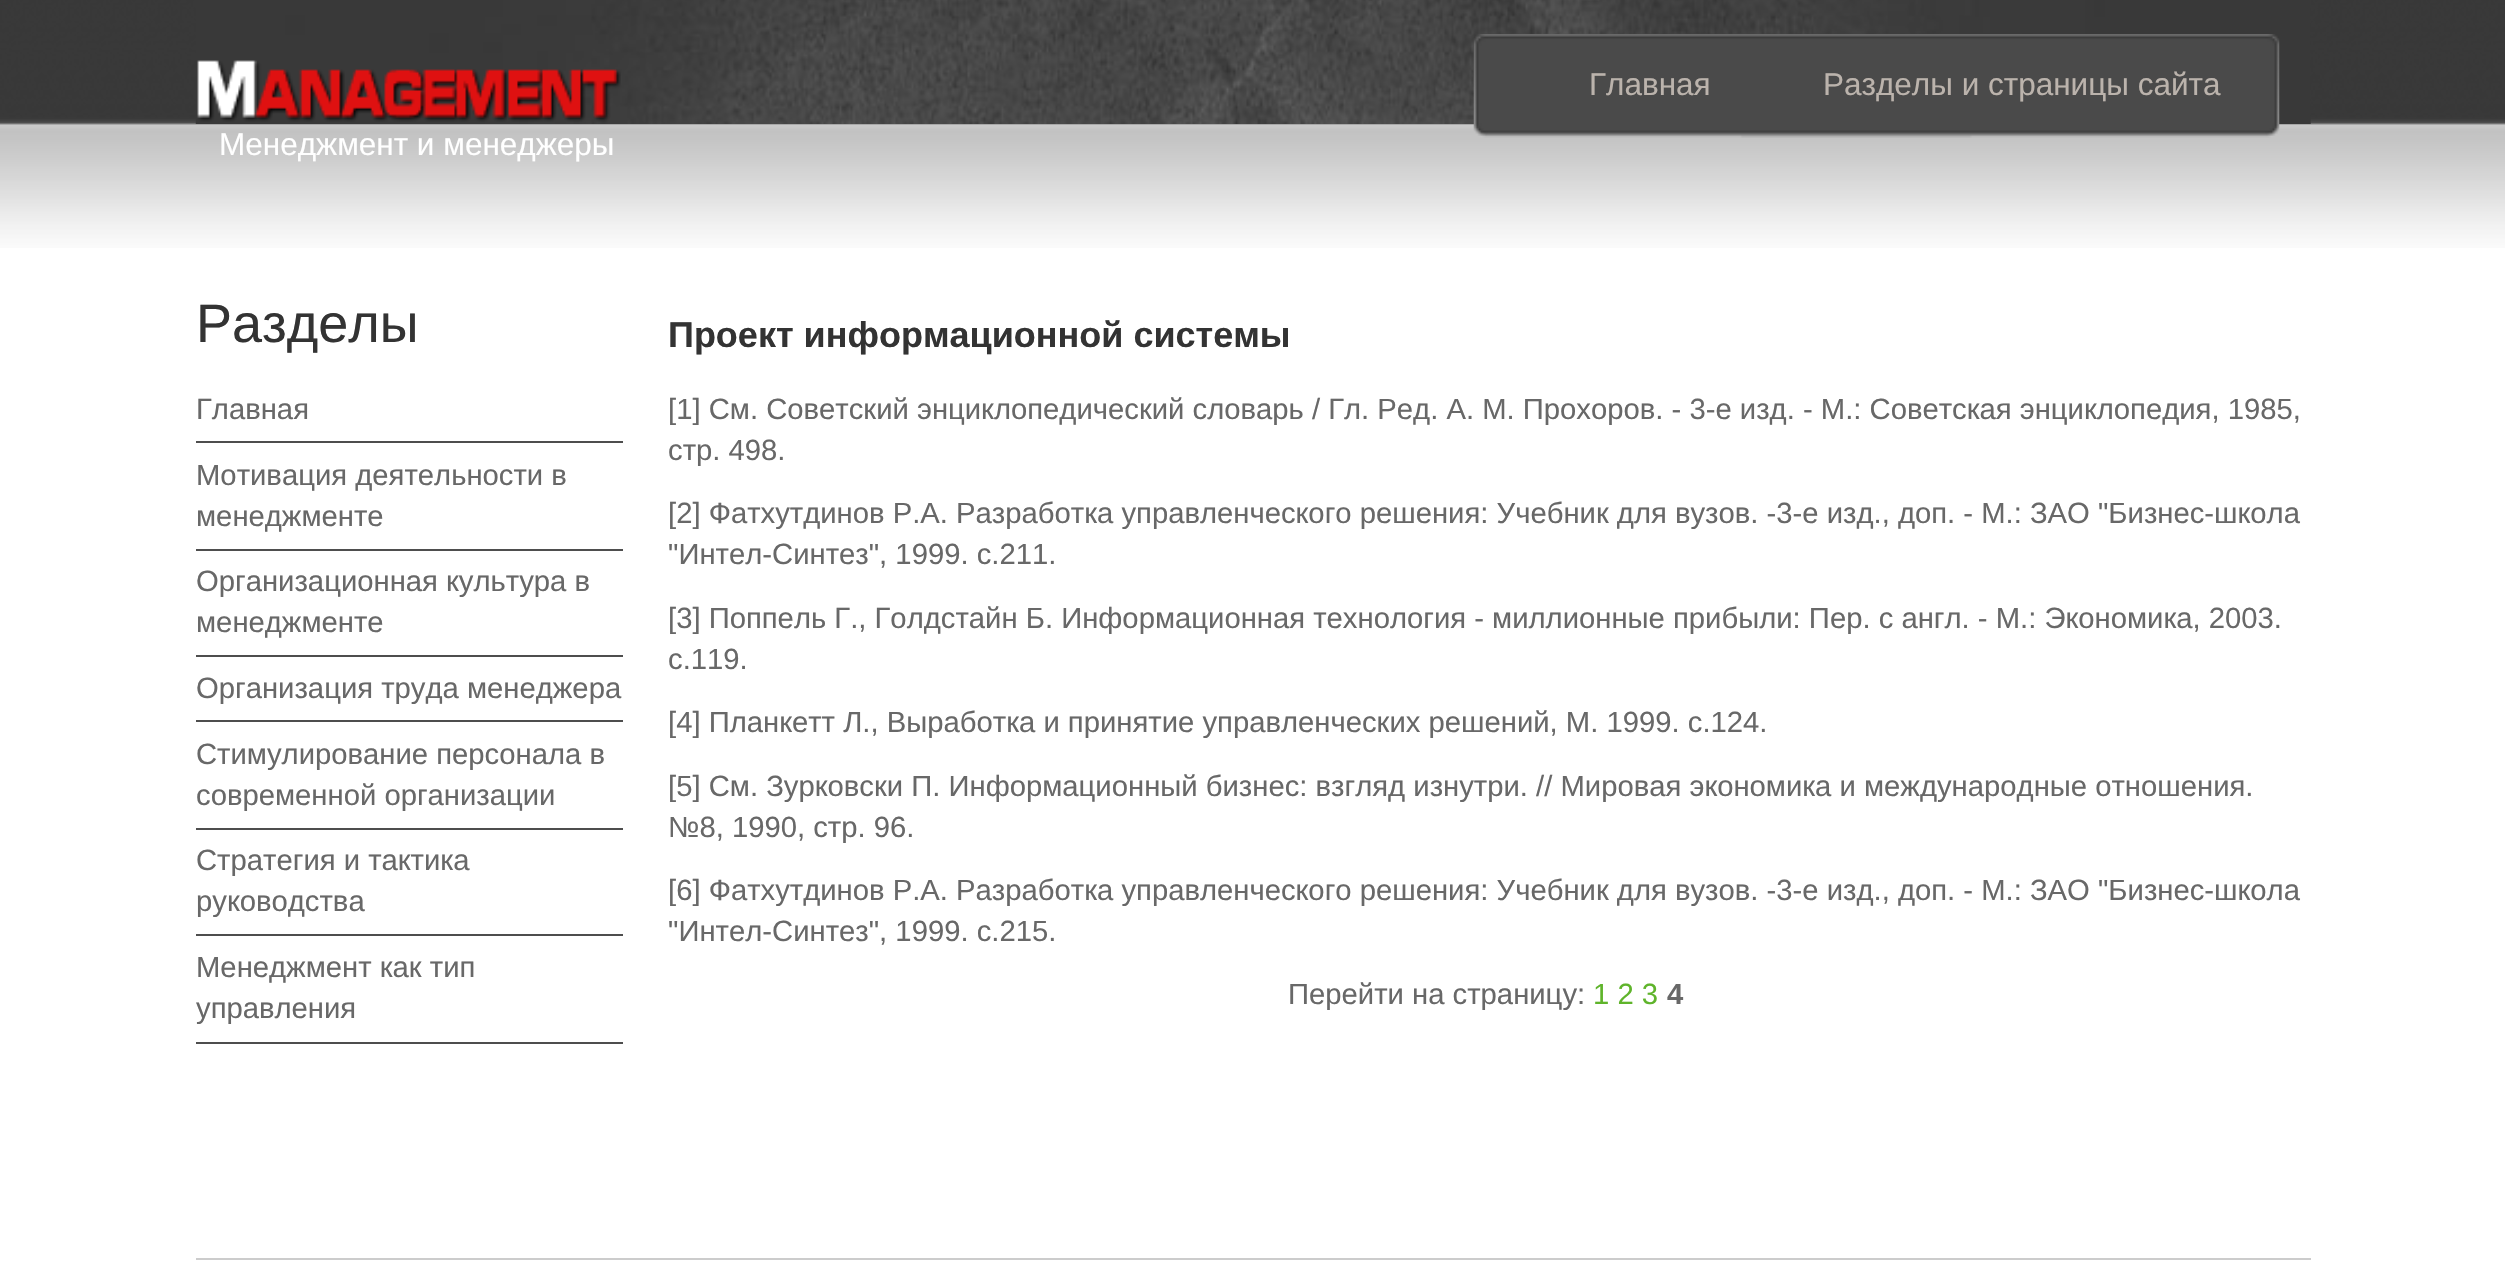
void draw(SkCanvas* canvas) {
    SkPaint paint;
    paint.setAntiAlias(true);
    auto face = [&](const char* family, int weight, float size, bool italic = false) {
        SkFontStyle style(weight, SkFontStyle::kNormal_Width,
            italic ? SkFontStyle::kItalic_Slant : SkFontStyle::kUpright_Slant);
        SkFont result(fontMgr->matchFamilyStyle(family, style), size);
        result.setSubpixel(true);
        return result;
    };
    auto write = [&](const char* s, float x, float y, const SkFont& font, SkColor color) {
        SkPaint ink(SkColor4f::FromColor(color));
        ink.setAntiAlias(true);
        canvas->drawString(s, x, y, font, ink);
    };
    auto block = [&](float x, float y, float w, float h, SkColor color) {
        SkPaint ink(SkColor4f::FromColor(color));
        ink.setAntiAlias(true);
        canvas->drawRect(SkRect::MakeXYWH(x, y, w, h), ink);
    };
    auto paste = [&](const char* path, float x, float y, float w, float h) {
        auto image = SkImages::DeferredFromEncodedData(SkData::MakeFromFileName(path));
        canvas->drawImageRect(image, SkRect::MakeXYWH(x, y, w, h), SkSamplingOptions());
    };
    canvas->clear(SK_ColorWHITE);
    paste("pic1.png", 0, 0, 2505, 248);
    paste("pic2.png", 195, 0, 2116, 124);
    paste("pic3.png", 1473, 34, 807, 104);
    auto kFont1 = face("Liberation Sans", 400, 31.5f);
    write("Главная", 1589, 95, kFont1, SkColorSetRGB(187, 179, 172));
    write("Разделы и страницы сайта", 1823, 95, kFont1, SkColorSetRGB(187, 179, 172));
    paste("pic4.png", 197, 60, 424, 62);
    write("Менеджмент и менеджеры", 219, 155, kFont1, SK_ColorWHITE);
    auto kFont2 = face("Liberation Sans", 400, 54);
    write("Разделы", 196, 342, kFont2, SkColorSetRGB(51, 51, 51));
    block(196, 441, 427, 2, SkColorSetRGB(78, 78, 78));
    auto kFont3 = face("Liberation Sans", 400, 29.25f);
    write("Главная", 196, 419, kFont3, SkColorSetRGB(104, 104, 104));
    block(196, 549, 427, 2, SkColorSetRGB(78, 78, 78));
    write("Мотивация деятельности в", 196, 485, kFont3, SkColorSetRGB(104, 104, 104));
    write("менеджменте", 196, 526, kFont3, SkColorSetRGB(104, 104, 104));
    block(196, 655, 427, 2, SkColorSetRGB(78, 78, 78));
    write("Организационная культура в", 196, 591, kFont3, SkColorSetRGB(104, 104, 104));
    write("менеджменте", 196, 632, kFont3, SkColorSetRGB(104, 104, 104));
    block(196, 720, 427, 2, SkColorSetRGB(78, 78, 78));
    write("Организация труда менеджера", 196, 698, kFont3, SkColorSetRGB(104, 104, 104));
    block(196, 828, 427, 2, SkColorSetRGB(78, 78, 78));
    write("Стимулирование персонала в", 196, 764, kFont3, SkColorSetRGB(104, 104, 104));
    write("современной организации", 196, 805, kFont3, SkColorSetRGB(104, 104, 104));
    block(196, 934, 427, 2, SkColorSetRGB(78, 78, 78));
    write("Стратегия и тактика", 196, 870, kFont3, SkColorSetRGB(104, 104, 104));
    write("руководства", 196, 911, kFont3, SkColorSetRGB(104, 104, 104));
    block(196, 1042, 427, 2, SkColorSetRGB(78, 78, 78));
    write("Менеджмент как тип", 196, 977, kFont3, SkColorSetRGB(104, 104, 104));
    write("управления", 196, 1018, kFont3, SkColorSetRGB(104, 104, 104));
    auto kFont4 = face("Liberation Sans", 700, 36);
    write("Проект информационной системы", 668, 347, kFont4, SkColorSetRGB(51, 51, 51));
    write("[1] См. Советский энциклопедический словарь / Гл. Ред. А. М. Прохоров. - 3-е изд. - М.: Советская энциклопедия, 1985,", 668, 419, kFont3, SkColorSetRGB(104, 104, 104));
    write("стр. 498.", 668, 460, kFont3, SkColorSetRGB(104, 104, 104));
    write("[2] Фатхутдинов Р.А. Разработка управленческого решения: Учебник для вузов. -3-е изд., доп. - М.: ЗАО \"Бизнес-школа", 668, 523, kFont3, SkColorSetRGB(104, 104, 104));
    write("\"Интел-Синтез\", 1999. с.211.", 668, 564, kFont3, SkColorSetRGB(104, 104, 104));
    write("[3] Поппель Г., Голдстайн Б. Информационная технология - миллионные прибыли: Пер. с англ. - М.: Экономика, 2003.", 668, 628, kFont3, SkColorSetRGB(104, 104, 104));
    write("с.119.", 668, 669, kFont3, SkColorSetRGB(104, 104, 104));
    write("[4] Планкетт Л., Выработка и принятие управленческих решений, М. 1999. с.124.", 668, 732, kFont3, SkColorSetRGB(104, 104, 104));
    write("[5] См. Зурковски П. Информационный бизнес: взгляд изнутри. // Мировая экономика и международные отношения.", 668, 796, kFont3, SkColorSetRGB(104, 104, 104));
    write("№8, 1990, стр. 96.", 668, 837, kFont3, SkColorSetRGB(104, 104, 104));
    write("[6] Фатхутдинов Р.А. Разработка управленческого решения: Учебник для вузов. -3-е изд., доп. - М.: ЗАО \"Бизнес-школа", 668, 900, kFont3, SkColorSetRGB(104, 104, 104));
    write("\"Интел-Синтез\", 1999. с.215.", 668, 941, kFont3, SkColorSetRGB(104, 104, 104));
    write("Перейти на страницу:", 1288, 1004, kFont3, SkColorSetRGB(104, 104, 104));
    write("1 2 3", 1593, 1004, kFont3, SkColorSetRGB(95, 180, 43));
    auto kFont5 = face("Liberation Sans", 700, 29.25f);
    write("4", 1667, 1004, kFont5, SkColorSetRGB(104, 104, 104));
    block(196, 1258, 2115, 2, SkColorSetRGB(204, 204, 204));
}
